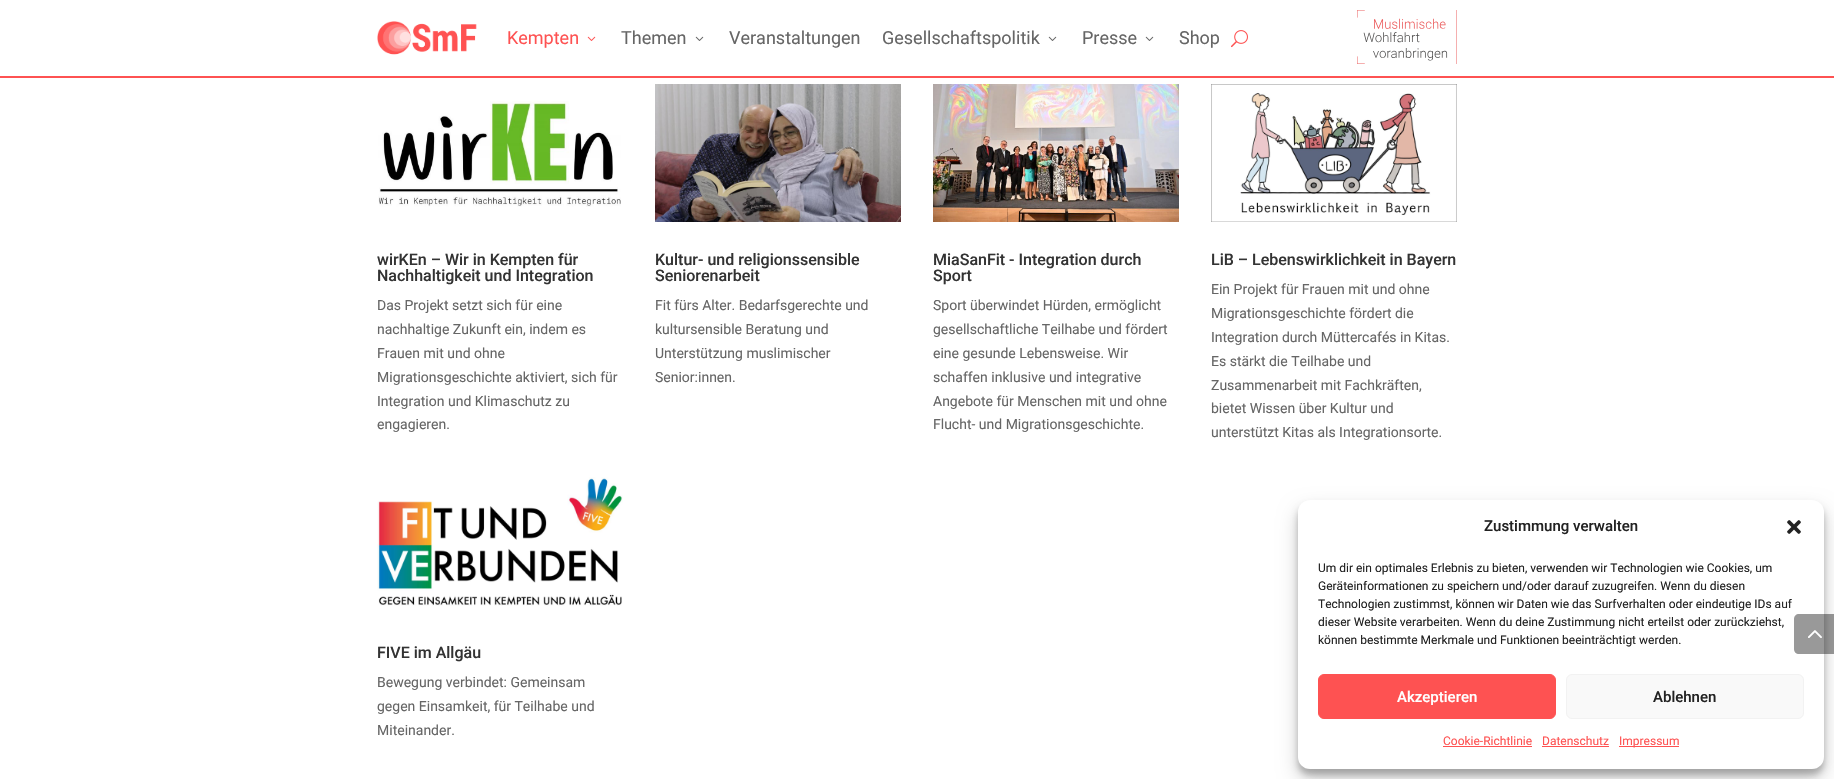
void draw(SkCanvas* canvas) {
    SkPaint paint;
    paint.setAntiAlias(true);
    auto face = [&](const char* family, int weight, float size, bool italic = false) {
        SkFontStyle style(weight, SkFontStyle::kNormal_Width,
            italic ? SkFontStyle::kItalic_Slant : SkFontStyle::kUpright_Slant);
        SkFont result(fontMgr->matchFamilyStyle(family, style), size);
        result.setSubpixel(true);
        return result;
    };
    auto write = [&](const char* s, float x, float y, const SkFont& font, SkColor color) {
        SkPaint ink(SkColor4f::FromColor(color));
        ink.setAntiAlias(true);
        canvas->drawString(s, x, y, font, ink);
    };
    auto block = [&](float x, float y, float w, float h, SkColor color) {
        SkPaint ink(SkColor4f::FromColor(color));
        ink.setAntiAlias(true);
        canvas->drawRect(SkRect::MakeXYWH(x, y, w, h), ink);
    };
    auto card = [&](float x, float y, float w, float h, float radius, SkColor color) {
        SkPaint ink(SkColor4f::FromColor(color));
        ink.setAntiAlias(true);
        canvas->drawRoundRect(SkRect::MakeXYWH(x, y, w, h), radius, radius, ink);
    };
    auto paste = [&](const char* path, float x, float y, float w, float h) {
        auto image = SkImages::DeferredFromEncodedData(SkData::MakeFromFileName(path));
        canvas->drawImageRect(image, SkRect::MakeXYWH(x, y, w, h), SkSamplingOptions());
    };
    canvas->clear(SK_ColorWHITE);
    block(0, 76, 1834, 2, SkColorSetRGB(254, 82, 82));
    paste("pic1.png", 377, 21, 100, 34);
    auto kFont1 = face("Roboto", 400, 18);
    write("Kempten", 507, 44, kFont1, SkColorSetRGB(254, 82, 82));
    paste("pic2.png", 587, 36, 9, 5);
    write("Themen", 621, 44, kFont1, SkColorSetRGB(102, 102, 102));
    paste("pic3.png", 695, 36, 9, 5);
    write("Veranstaltungen", 729, 44, kFont1, SkColorSetRGB(102, 102, 102));
    write("Gesellschaftspolitik", 882, 44, kFont1, SkColorSetRGB(102, 102, 102));
    paste("pic3.png", 1048, 36, 9, 5);
    write("Presse", 1082, 44, kFont1, SkColorSetRGB(102, 102, 102));
    paste("pic3.png", 1145, 36, 9, 5);
    write("Shop", 1179, 44, kFont1, SkColorSetRGB(102, 102, 102));
    paste("pic4.png", 1357, 10, 100, 54);
    paste("pic5.png", 1231, 30, 17, 18);
    paste("pic6.png", 378, 101, 243, 106);
    auto kFont2 = face("Roboto", 500, 16);
    write("wirKEn – Wir in Kempten für", 377, 265, kFont2, SkColorSetRGB(51, 51, 51));
    write("Nachhaltigkeit und Integration", 377, 281, kFont2, SkColorSetRGB(51, 51, 51));
    auto kFont3 = face("Roboto", 400, 14);
    write("Das Projekt setzt sich für eine", 377, 310, kFont3, SkColorSetRGB(102, 102, 102));
    write("nachhaltige Zukunft ein, indem es", 377, 334, kFont3, SkColorSetRGB(102, 102, 102));
    write("Frauen mit und ohne", 377, 358, kFont3, SkColorSetRGB(102, 102, 102));
    write("Migrationsgeschichte aktiviert, sich für", 377, 382, kFont3, SkColorSetRGB(102, 102, 102));
    write("Integration und Klimaschutz zu", 377, 406, kFont3, SkColorSetRGB(102, 102, 102));
    write("engagieren.", 377, 429, kFont3, SkColorSetRGB(102, 102, 102));
    paste("pic7.png", 655, 84, 246, 138);
    write("Kultur- und religionssensible", 655, 265, kFont2, SkColorSetRGB(51, 51, 51));
    write("Seniorenarbeit", 655, 281, kFont2, SkColorSetRGB(51, 51, 51));
    write("Fit fürs Alter. Bedarfsgerechte und", 655, 310, kFont3, SkColorSetRGB(102, 102, 102));
    write("kultursensible Beratung und", 655, 334, kFont3, SkColorSetRGB(102, 102, 102));
    write("Unterstützung muslimischer", 655, 358, kFont3, SkColorSetRGB(102, 102, 102));
    write("Senior:innen.", 655, 382, kFont3, SkColorSetRGB(102, 102, 102));
    paste("pic8.png", 933, 84, 246, 138);
    write("MiaSanFit - Integration durch", 933, 265, kFont2, SkColorSetRGB(51, 51, 51));
    write("Sport", 933, 281, kFont2, SkColorSetRGB(51, 51, 51));
    write("Sport überwindet Hürden, ermöglicht", 933, 310, kFont3, SkColorSetRGB(102, 102, 102));
    write("gesellschaftliche Teilhabe und fördert", 933, 334, kFont3, SkColorSetRGB(102, 102, 102));
    write("eine gesunde Lebensweise. Wir", 933, 358, kFont3, SkColorSetRGB(102, 102, 102));
    write("schaffen inklusive und integrative", 933, 382, kFont3, SkColorSetRGB(102, 102, 102));
    write("Angebote für Menschen mit und ohne", 933, 406, kFont3, SkColorSetRGB(102, 102, 102));
    write("Flucht- und Migrationsgeschichte.", 933, 429, kFont3, SkColorSetRGB(102, 102, 102));
    paste("pic9.png", 1211, 84, 246, 138);
    write("LiB – Lebenswirklichkeit in Bayern", 1211, 265, kFont2, SkColorSetRGB(51, 51, 51));
    write("Ein Projekt für Frauen mit und ohne", 1211, 294, kFont3, SkColorSetRGB(102, 102, 102));
    write("Migrationsgeschichte fördert die", 1211, 318, kFont3, SkColorSetRGB(102, 102, 102));
    write("Integration durch Müttercafés in Kitas.", 1211, 342, kFont3, SkColorSetRGB(102, 102, 102));
    write("Es stärkt die Teilhabe und", 1211, 366, kFont3, SkColorSetRGB(102, 102, 102));
    write("Zusammenarbeit mit Fachkräften,", 1211, 390, kFont3, SkColorSetRGB(102, 102, 102));
    write("bietet Wissen über Kultur und", 1211, 413, kFont3, SkColorSetRGB(102, 102, 102));
    write("unterstützt Kitas als Integrationsorte.", 1211, 437, kFont3, SkColorSetRGB(102, 102, 102));
    paste("pic10.png", 377, 477, 246, 129);
    write("FIVE im Allgäu", 377, 658, kFont2, SkColorSetRGB(51, 51, 51));
    write("Bewegung verbindet: Gemeinsam", 377, 687, kFont3, SkColorSetRGB(102, 102, 102));
    write("gegen Einsamkeit, für Teilhabe und", 377, 711, kFont3, SkColorSetRGB(102, 102, 102));
    write("Miteinander.", 377, 735, kFont3, SkColorSetRGB(102, 102, 102));
    paint.setColor(SkColorSetARGB(59, 0, 0, 0));
    paint.setMaskFilter(SkMaskFilter::MakeBlur(kNormal_SkBlurStyle, 3));
    canvas->drawRoundRect(SkRect::MakeXYWH(1298, 506, 526, 269), 12, 12, paint);
    paint.setMaskFilter(nullptr);
    paint.setColor(SkColorSetARGB(48, 0, 0, 0));
    paint.setMaskFilter(SkMaskFilter::MakeBlur(kNormal_SkBlurStyle, 10));
    canvas->drawRoundRect(SkRect::MakeXYWH(1298, 510, 526, 269), 12, 12, paint);
    paint.setMaskFilter(nullptr);
    card(1298, 500, 526, 269, 12, SK_ColorWHITE);
    auto kFont4 = face("Roboto", 500, 15);
    write("Zustimmung verwalten", 1484, 531, kFont4, SkColorSetRGB(34, 34, 34));
    paste("pic11.png", 1787, 520, 14, 14);
    auto kFont5 = face("Roboto", 400, 12);
    write("Um dir ein optimales Erlebnis zu bieten, verwenden wir Technologien wie Cookies, um", 1318, 572, kFont5, SkColorSetRGB(34, 34, 34));
    write("Geräteinformationen zu speichern und/oder darauf zuzugreifen. Wenn du diesen", 1318, 590, kFont5, SkColorSetRGB(34, 34, 34));
    write("Technologien zustimmst, können wir Daten wie das Surfverhalten oder eindeutige IDs auf", 1318, 608, kFont5, SkColorSetRGB(34, 34, 34));
    write("dieser Website verarbeiten. Wenn du deine Zustimmung nicht erteilst oder zurückziehst,", 1318, 626, kFont5, SkColorSetRGB(34, 34, 34));
    write("können bestimmte Merkmale und Funktionen beeinträchtigt werden.", 1318, 644, kFont5, SkColorSetRGB(34, 34, 34));
    paint.setColor(SkColorSetRGB(254, 82, 82));
    canvas->drawRoundRect(SkRect::MakeXYWH(1318.5f, 674.5f, 237, 44), 5.5f, 5.5f, paint);
    paint.setStyle(SkPaint::kStroke_Style);
    paint.setStrokeWidth(1);
    canvas->drawRoundRect(SkRect::MakeXYWH(1318.5f, 674.5f, 237, 44), 5.5f, 5.5f, paint);
    write("Akzeptieren", 1397, 702, kFont4, SK_ColorWHITE);
    paint.setStyle(SkPaint::kFill_Style);
    paint.setColor(SkColorSetRGB(249, 249, 249));
    canvas->drawRoundRect(SkRect::MakeXYWH(1566.5f, 674.5f, 237, 44), 5.5f, 5.5f, paint);
    paint.setStyle(SkPaint::kStroke_Style);
    paint.setColor(SkColorSetRGB(242, 242, 242));
    canvas->drawRoundRect(SkRect::MakeXYWH(1566.5f, 674.5f, 237, 44), 5.5f, 5.5f, paint);
    write("Ablehnen", 1653, 702, kFont4, SkColorSetRGB(34, 34, 34));
    write("Cookie-Richtlinie", 1443, 745, kFont5, SkColorSetRGB(254, 82, 82));
    block(1443, 746, 89, 1, SkColorSetRGB(254, 82, 82));
    write("Datenschutz", 1542, 745, kFont5, SkColorSetRGB(254, 82, 82));
    block(1542, 746, 67, 1, SkColorSetRGB(254, 82, 82));
    block(1619, 746, 60, 1, SkColorSetRGB(254, 82, 82));
    write("Impressum", 1619, 745, kFont5, SkColorSetRGB(254, 82, 82));
    paint.setStyle(SkPaint::kFill_Style);
    paint.setColor(SkColorSetARGB(102, 0, 0, 0));
    canvas->drawPath(SkPathBuilder().moveTo(1799, 614).lineTo(1834, 614).lineTo(1834, 654).lineTo(1799, 654).cubicTo(1796, 654, 1794, 652, 1794, 649).lineTo(1794, 619).cubicTo(1794, 616, 1796, 614, 1799, 614).close().detach(), paint);
    paste("pic12.png", 1808, 630, 14, 8);
}
